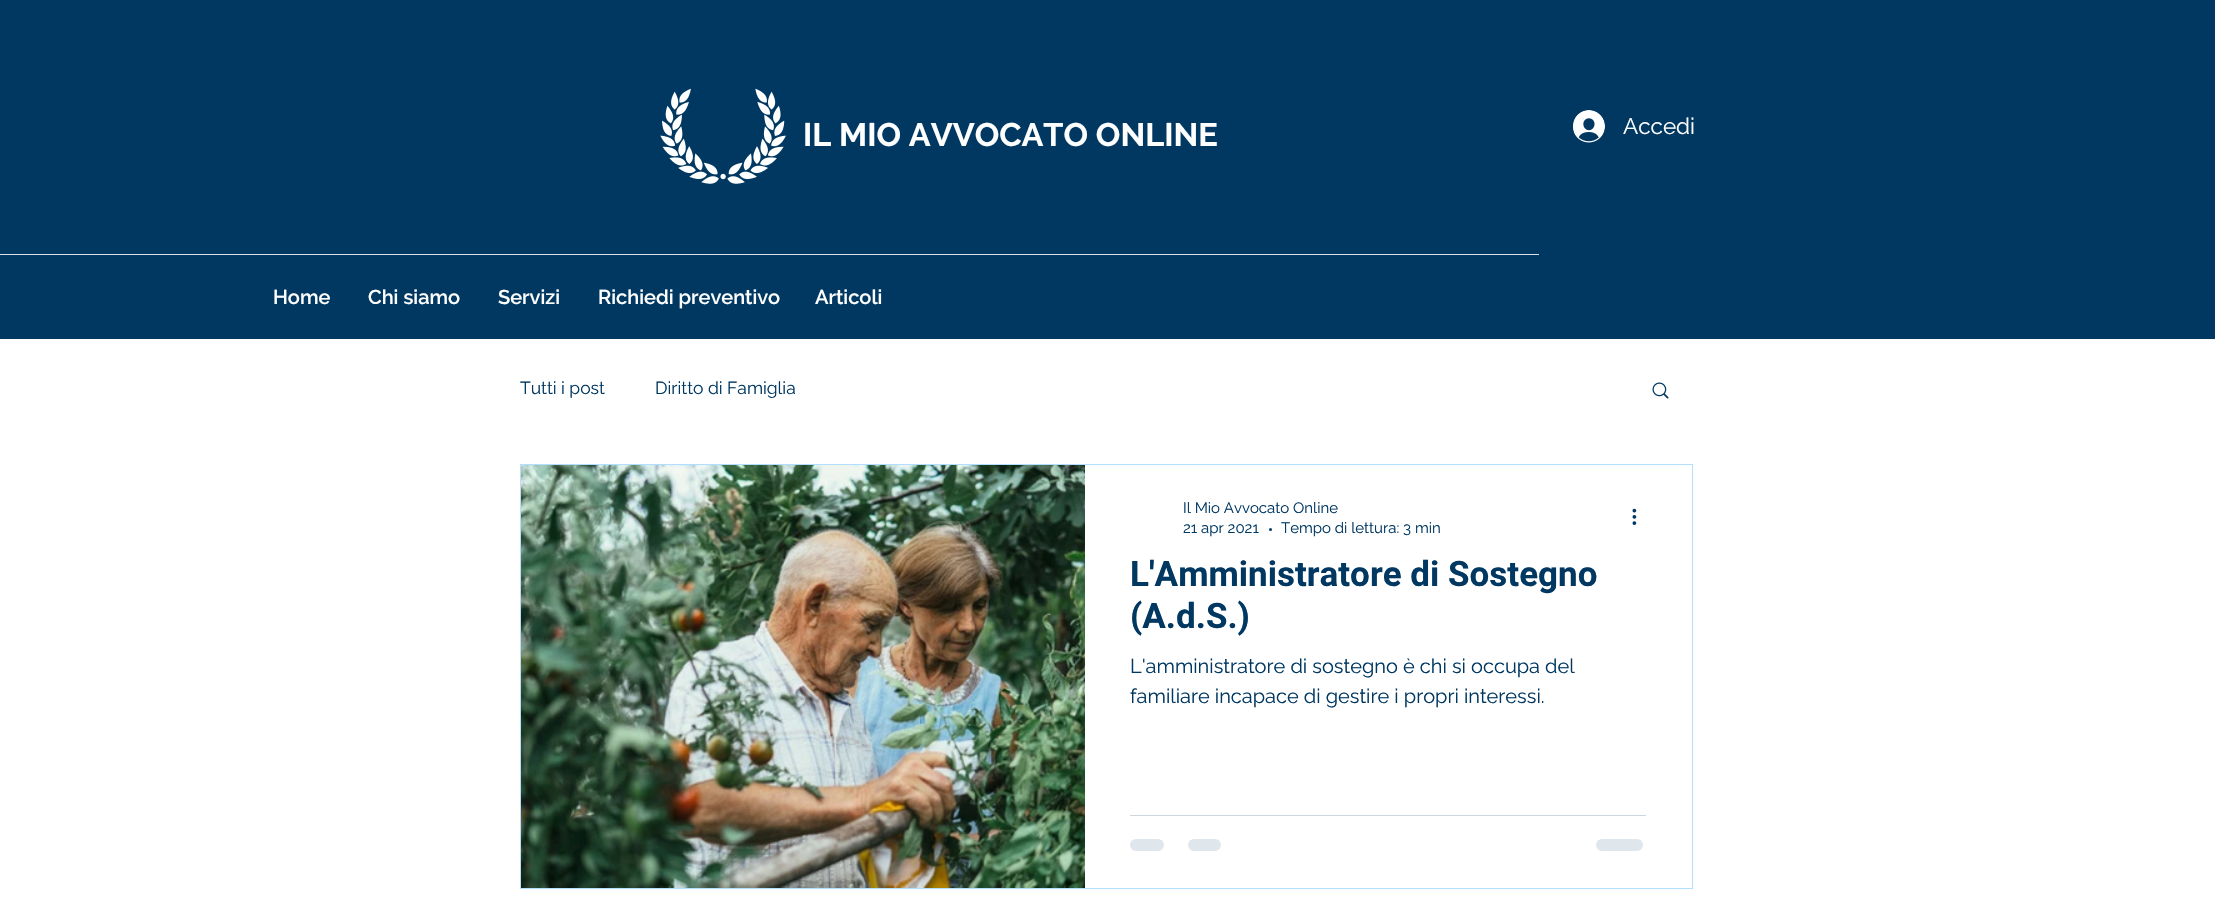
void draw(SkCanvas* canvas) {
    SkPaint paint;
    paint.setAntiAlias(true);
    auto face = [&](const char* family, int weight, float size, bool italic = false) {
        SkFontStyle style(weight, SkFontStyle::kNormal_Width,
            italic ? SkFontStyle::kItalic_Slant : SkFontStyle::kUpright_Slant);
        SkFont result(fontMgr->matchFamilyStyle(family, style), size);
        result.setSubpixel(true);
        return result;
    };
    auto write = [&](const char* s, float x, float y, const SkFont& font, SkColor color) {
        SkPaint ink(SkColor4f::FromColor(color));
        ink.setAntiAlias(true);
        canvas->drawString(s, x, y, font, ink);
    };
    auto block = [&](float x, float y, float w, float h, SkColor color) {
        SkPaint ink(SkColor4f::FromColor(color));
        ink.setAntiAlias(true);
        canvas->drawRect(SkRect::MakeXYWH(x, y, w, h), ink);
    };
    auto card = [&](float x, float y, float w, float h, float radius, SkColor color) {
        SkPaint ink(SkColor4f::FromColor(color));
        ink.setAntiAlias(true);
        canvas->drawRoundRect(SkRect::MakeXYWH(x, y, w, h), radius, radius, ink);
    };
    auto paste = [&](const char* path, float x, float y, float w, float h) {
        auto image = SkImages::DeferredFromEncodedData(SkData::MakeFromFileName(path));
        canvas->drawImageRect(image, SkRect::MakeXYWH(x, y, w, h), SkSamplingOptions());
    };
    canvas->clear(SK_ColorWHITE);
    block(0, 0, 2215, 339, SkColorSetRGB(0, 56, 98));
    paste("pic1.png", 660, 88, 126, 96);
    auto kFont1 = face("Raleway", 700, 32.5f);
    write("IL MIO AVVOCATO ONLINE", 803, 146, kFont1, SK_ColorWHITE);
    paste("pic2.png", 1573, 110, 32, 33);
    auto kFont2 = face("Raleway", 400, 22.5f);
    write("Accedi", 1623, 134, kFont2, SK_ColorWHITE);
    block(0, 254, 1539, 1, SkColorSetRGB(217, 225, 231));
    auto kFont3 = face("Raleway", 600, 20);
    write("Home", 273, 304, kFont3, SK_ColorWHITE);
    write("Chi siamo", 368, 304, kFont3, SK_ColorWHITE);
    write("Servizi", 498, 304, kFont3, SK_ColorWHITE);
    write("Richiedi preventivo", 598, 304, kFont3, SK_ColorWHITE);
    write("Articoli", 815, 304, kFont3, SK_ColorWHITE);
    auto kFont4 = face("Raleway", 400, 17.5f);
    write("Tutti i post", 520, 394, kFont4, SkColorSetRGB(0, 56, 98));
    write("Diritto di Famiglia", 655, 394, kFont4, SkColorSetRGB(0, 56, 98));
    paste("pic3.png", 1652, 382, 17, 17);
    paint.setStyle(SkPaint::kStroke_Style);
    paint.setStrokeWidth(1);
    paint.setColor(SkColorSetRGB(178, 222, 255));
    canvas->drawRect(SkRect::MakeXYWH(520.5f, 464.5f, 1172, 424), paint);
    paste("pic4.png", 521, 465, 564, 423);
    auto kFont5 = face("Raleway", 400, 15);
    write("Il Mio Avvocato Online", 1183, 513, kFont5, SkColorSetRGB(0, 56, 98));
    write("21 apr 2021", 1183, 533, kFont5, SkColorSetRGB(0, 56, 98));
    paint.setStyle(SkPaint::kFill_Style);
    paint.setColor(SkColorSetRGB(0, 56, 98));
    canvas->drawCircle(1270.5f, 529.5f, 1.5f, paint);
    write("Tempo di lettura: 3 min", 1281, 533, kFont5, SkColorSetRGB(0, 56, 98));
    paste("pic5.png", 1632, 508, 5, 17);
    auto kFont6 = face("Roboto", 700, 35);
    write("L'Amministratore di Sostegno", 1130, 586, kFont6, SkColorSetRGB(0, 56, 98));
    write("(A.d.S.)", 1130, 628, kFont6, SkColorSetRGB(0, 56, 98));
    auto kFont7 = face("Raleway", 400, 20);
    write("L'amministratore di sostegno è chi si occupa del", 1130, 673, kFont7, SkColorSetRGB(0, 56, 98));
    write("familiare incapace di gestire i propri interessi.", 1130, 703, kFont7, SkColorSetRGB(0, 56, 98));
    block(1130, 815, 516, 1, SkColorSetRGB(204, 215, 224));
    card(1130, 839, 34, 12, 6, SkColorSetRGB(224, 231, 236));
    card(1188, 839, 33, 12, 6, SkColorSetRGB(224, 231, 236));
    card(1596, 839, 47, 12, 6, SkColorSetRGB(224, 231, 236));
}
